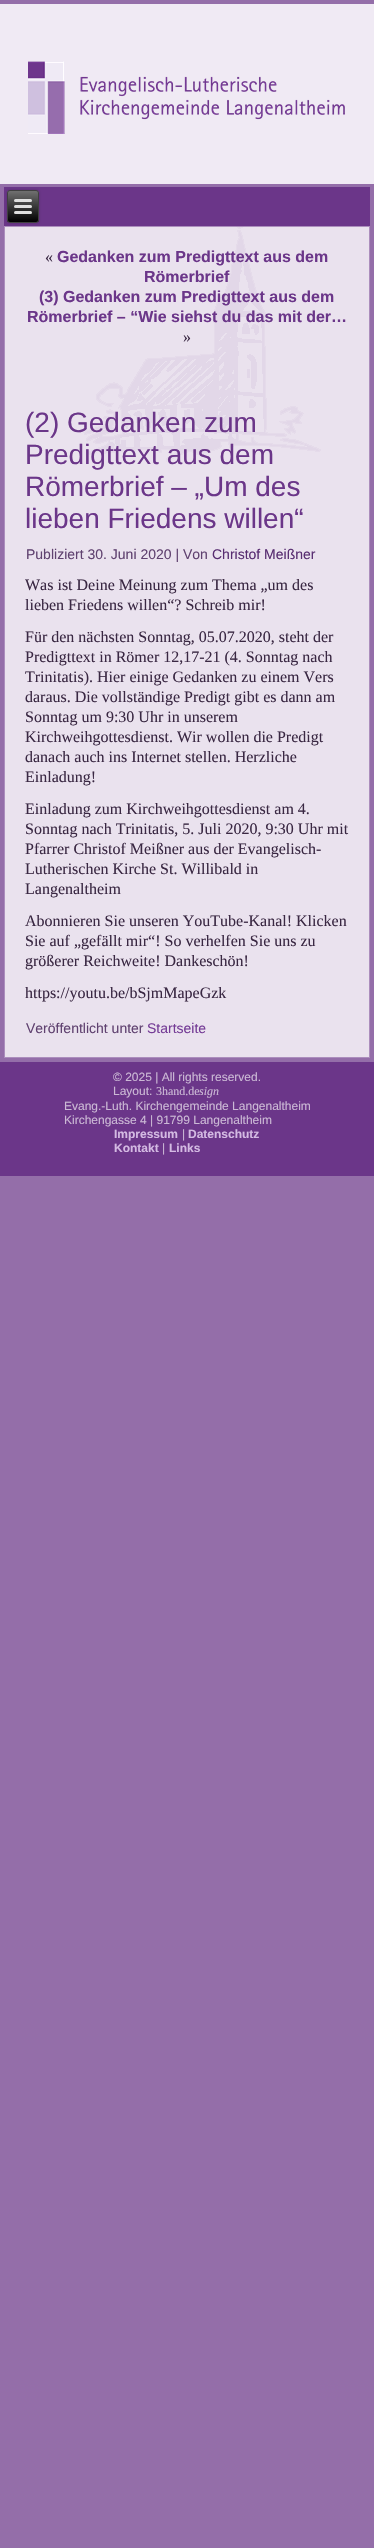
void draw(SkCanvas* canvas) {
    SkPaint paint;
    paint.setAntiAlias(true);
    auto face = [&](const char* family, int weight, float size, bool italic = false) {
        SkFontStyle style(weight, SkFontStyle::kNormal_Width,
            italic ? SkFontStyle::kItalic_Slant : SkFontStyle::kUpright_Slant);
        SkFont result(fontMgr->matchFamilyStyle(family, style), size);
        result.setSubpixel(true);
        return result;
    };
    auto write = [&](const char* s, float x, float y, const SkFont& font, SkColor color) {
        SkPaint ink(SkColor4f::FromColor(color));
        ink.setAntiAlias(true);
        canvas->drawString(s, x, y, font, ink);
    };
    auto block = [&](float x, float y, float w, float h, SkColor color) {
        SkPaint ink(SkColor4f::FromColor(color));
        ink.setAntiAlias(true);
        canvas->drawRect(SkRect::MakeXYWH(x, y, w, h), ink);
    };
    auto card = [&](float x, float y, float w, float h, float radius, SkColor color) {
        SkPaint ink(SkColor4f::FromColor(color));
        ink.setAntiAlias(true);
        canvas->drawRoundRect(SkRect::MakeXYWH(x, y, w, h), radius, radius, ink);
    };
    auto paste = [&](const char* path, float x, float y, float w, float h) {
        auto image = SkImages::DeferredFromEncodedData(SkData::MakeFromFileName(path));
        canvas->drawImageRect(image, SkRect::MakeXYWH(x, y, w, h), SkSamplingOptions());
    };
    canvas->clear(SkColorSetRGB(148, 110, 169));
    paste("pic1.png", 83, 226, 238, 236);
    block(0, 4, 374, 180, SkColorSetRGB(240, 234, 244));
    paste("pic2.png", 28, 61, 317, 73);
    block(4, 187, 366, 39, SkColorSetRGB(107, 54, 137));
    block(4, 226, 366, 832, SkColorSetARGB(204, 255, 255, 255));
    paint.setStyle(SkPaint::kStroke_Style);
    paint.setStrokeWidth(1);
    paint.setColor(SkColorSetARGB(204, 156, 120, 176));
    canvas->drawRect(SkRect::MakeXYWH(4.5f, 226.5f, 365, 831), paint);
    paint.setStyle(SkPaint::kFill_Style);
    paint.setColor(SkColorSetARGB(51, 0, 0, 0));
    paint.setMaskFilter(SkMaskFilter::MakeBlur(kNormal_SkBlurStyle, 1.5f));
    canvas->drawRoundRect(SkRect::MakeXYWH(7, 190, 32, 33), 3, 3, paint);
    paint.setMaskFilter(nullptr);
    canvas->save();
    canvas->clipPath(SkPathBuilder().moveTo(10, 190).lineTo(36, 190).cubicTo(37.5f, 190, 39, 191.5f, 39, 193).lineTo(39, 220).cubicTo(39, 221.5f, 37.5f, 223, 36, 223).lineTo(10, 223).cubicTo(8.5f, 223, 7, 221.5f, 7, 220).lineTo(7, 193).cubicTo(7, 191.5f, 8.5f, 190, 10, 190).close().detach(), true);
    {
        const SkColor colors[] = {SkColorSetRGB(112, 112, 112), SK_ColorBLACK};
        const float stops[] = {0, 1};
        const SkPoint ends[] = {{23, 191}, {23, 222}};
        paint.setShader(SkGradientShader::MakeLinear(ends, colors, stops, 2, SkTileMode::kClamp));
        paint.setAlpha(255);
    }
    canvas->drawRect(SkRect::MakeXYWH(7, 191, 32, 31), paint);
    canvas->restore();
    paint.setStyle(SkPaint::kStroke_Style);
    paint.setShader(nullptr);
    paint.setColor(SkColorSetRGB(64, 64, 64));
    canvas->drawRoundRect(SkRect::MakeXYWH(7.5f, 190.5f, 31, 32), 2.5f, 2.5f, paint);
    card(14, 199, 18, 3, 1.5f, SkColorSetRGB(224, 224, 224));
    card(14, 205, 18, 3, 1.5f, SkColorSetRGB(224, 224, 224));
    card(14, 211, 18, 3, 1.5f, SkColorSetRGB(224, 224, 224));
    auto kFont1 = face("Liberation Serif", 400, 16);
    write("«", 45, 262, kFont1, SkColorSetRGB(58, 40, 67));
    auto kFont2 = face("Liberation Sans", 700, 16);
    write("Gedanken zum Predigttext aus dem", 57, 262, kFont2, SkColorSetRGB(107, 54, 137));
    write("Römerbrief", 144, 282, kFont2, SkColorSetRGB(107, 54, 137));
    write("(3) Gedanken zum Predigttext aus dem", 39, 302, kFont2, SkColorSetRGB(107, 54, 137));
    write("Römerbrief – “Wie siehst du das mit der…", 27, 322, kFont2, SkColorSetRGB(107, 54, 137));
    write("»", 183, 342, kFont1, SkColorSetRGB(58, 40, 67));
    auto kFont3 = face("Liberation Sans", 400, 28);
    write("(2) Gedanken zum", 25, 432, kFont3, SkColorSetRGB(107, 54, 137));
    write("Predigttext aus dem", 25, 464, kFont3, SkColorSetRGB(107, 54, 137));
    write("Römerbrief – „Um des", 25, 496, kFont3, SkColorSetRGB(107, 54, 137));
    write("lieben Friedens willen“", 25, 528, kFont3, SkColorSetRGB(107, 54, 137));
    auto kFont4 = face("Liberation Sans", 400, 14);
    write("Publiziert 30. Juni 2020 | Von", 26, 559, kFont4, SkColorSetRGB(96, 66, 112));
    write("Christof Meißner", 212, 559, kFont4, SkColorSetRGB(88, 45, 113));
    write("Was ist Deine Meinung zum Thema „um des", 25, 590, kFont1, SkColorSetRGB(58, 40, 67));
    write("lieben Friedens willen“? Schreib mir!", 25, 610, kFont1, SkColorSetRGB(58, 40, 67));
    write("Für den nächsten Sonntag, 05.07.2020, steht der", 25, 642, kFont1, SkColorSetRGB(58, 40, 67));
    write("Predigttext in Römer 12,17-21 (4. Sonntag nach", 25, 662, kFont1, SkColorSetRGB(58, 40, 67));
    write("Trinitatis). Hier einige Gedanken zu einem Vers", 25, 682, kFont1, SkColorSetRGB(58, 40, 67));
    write("daraus. Die vollständige Predigt gibt es dann am", 25, 702, kFont1, SkColorSetRGB(58, 40, 67));
    write("Sonntag um 9:30 Uhr in unserem", 25, 722, kFont1, SkColorSetRGB(58, 40, 67));
    write("Kirchweihgottesdienst. Wir wollen die Predigt", 25, 742, kFont1, SkColorSetRGB(58, 40, 67));
    write("danach auch ins Internet stellen. Herzliche", 25, 762, kFont1, SkColorSetRGB(58, 40, 67));
    write("Einladung!", 25, 782, kFont1, SkColorSetRGB(58, 40, 67));
    write("Einladung zum Kirchweihgottesdienst am 4.", 25, 814, kFont1, SkColorSetRGB(58, 40, 67));
    write("Sonntag nach Trinitatis, 5. Juli 2020, 9:30 Uhr mit", 25, 834, kFont1, SkColorSetRGB(58, 40, 67));
    write("Pfarrer Christof Meißner aus der Evangelisch-", 25, 854, kFont1, SkColorSetRGB(58, 40, 67));
    write("Lutherischen Kirche St. Willibald in", 25, 874, kFont1, SkColorSetRGB(58, 40, 67));
    write("Langenaltheim", 25, 894, kFont1, SkColorSetRGB(58, 40, 67));
    write("Abonnieren Sie unseren YouTube-Kanal! Klicken", 25, 926, kFont1, SkColorSetRGB(58, 40, 67));
    write("Sie auf „gefällt mir“! So verhelfen Sie uns zu", 25, 946, kFont1, SkColorSetRGB(58, 40, 67));
    write("größerer Reichweite! Dankeschön!", 25, 966, kFont1, SkColorSetRGB(58, 40, 67));
    write("https://youtu.be/bSjmMapeGzk", 25, 998, kFont1, SkColorSetRGB(58, 40, 67));
    write("Veröffentlicht unter", 26, 1033, kFont4, SkColorSetRGB(96, 66, 112));
    write("Startseite", 147, 1033, kFont4, SkColorSetRGB(117, 60, 150));
    block(0, 1062, 374, 114, SkColorSetRGB(107, 54, 137));
    auto kFont5 = face("Liberation Sans", 400, 12);
    write("© 2025 | All rights reserved.", 113, 1081, kFont5, SkColorSetRGB(203, 184, 213));
    write("Layout:", 113, 1095, kFont5, SkColorSetRGB(203, 184, 213));
    auto kFont6 = face("Liberation Serif", 400, 12);
    write("3hand.de", 156, 1095, kFont6, SkColorSetRGB(203, 184, 213));
    auto kFont7 = face("Liberation Serif", 400, 12, true);
    write("sign", 199, 1095, kFont7, SkColorSetRGB(203, 184, 213));
    write("Evang.-Luth. Kirchengemeinde Langenaltheim", 64, 1110, kFont5, SkColorSetRGB(203, 184, 213));
    write("Kirchengasse 4 | 91799 Langenaltheim", 64, 1124, kFont5, SkColorSetRGB(203, 184, 213));
    auto kFont8 = face("Liberation Sans", 700, 12);
    write("Impressum", 114, 1138, kFont8, SkColorSetRGB(212, 186, 227));
    write("|", 182, 1138, kFont5, SkColorSetRGB(203, 184, 213));
    write("Datenschutz", 188, 1138, kFont8, SkColorSetRGB(212, 186, 227));
    write("Kontakt", 114, 1152, kFont8, SkColorSetRGB(212, 186, 227));
    write("|", 162, 1152, kFont5, SkColorSetRGB(203, 184, 213));
    write("Links", 169, 1152, kFont8, SkColorSetRGB(212, 186, 227));
}
